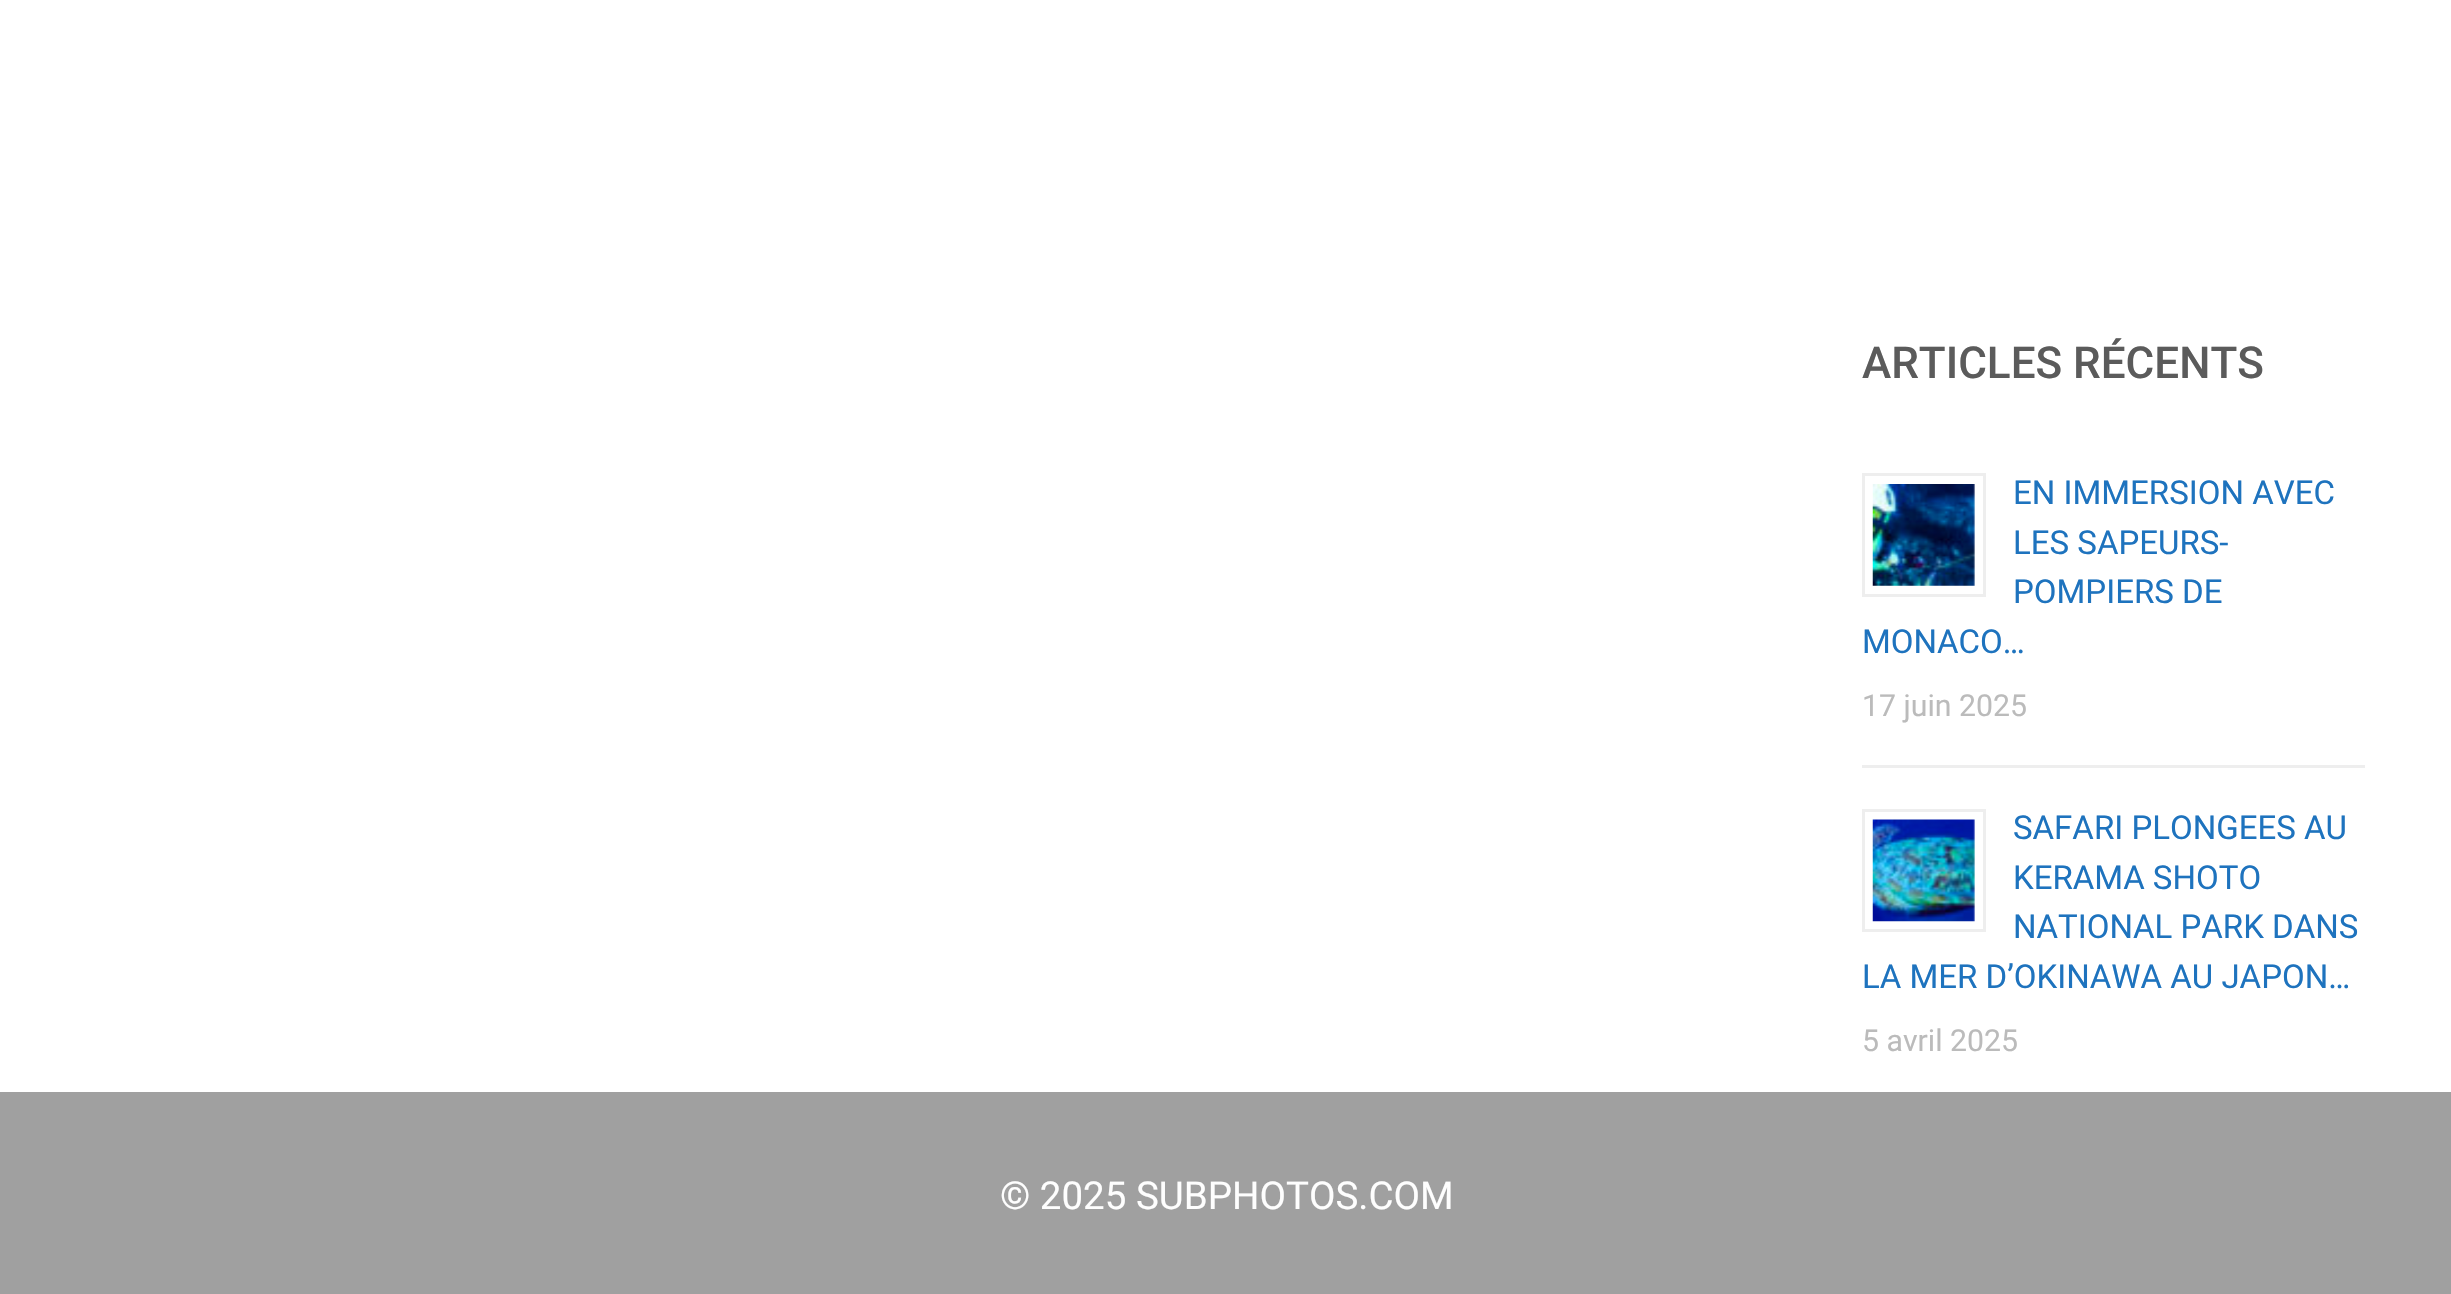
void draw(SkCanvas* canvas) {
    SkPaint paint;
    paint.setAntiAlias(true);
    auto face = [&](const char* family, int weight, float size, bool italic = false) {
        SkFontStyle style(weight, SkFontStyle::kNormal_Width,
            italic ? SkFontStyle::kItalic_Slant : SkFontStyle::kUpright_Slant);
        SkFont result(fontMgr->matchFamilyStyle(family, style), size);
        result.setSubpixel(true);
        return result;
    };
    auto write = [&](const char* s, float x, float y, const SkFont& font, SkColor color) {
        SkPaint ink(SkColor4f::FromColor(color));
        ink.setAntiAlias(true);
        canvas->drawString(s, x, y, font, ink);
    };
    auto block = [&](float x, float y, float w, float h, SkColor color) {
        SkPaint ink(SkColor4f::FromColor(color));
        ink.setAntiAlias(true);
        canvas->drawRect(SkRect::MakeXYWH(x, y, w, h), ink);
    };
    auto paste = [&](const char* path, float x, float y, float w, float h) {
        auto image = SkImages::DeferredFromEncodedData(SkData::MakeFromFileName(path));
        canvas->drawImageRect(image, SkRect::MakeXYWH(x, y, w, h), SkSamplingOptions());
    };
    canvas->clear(SK_ColorWHITE);
    auto kFont1 = face("Roboto", 500, 44);
    write("ARTICLES RÉCENTS", 1862, 378, kFont1, SkColorSetRGB(91, 91, 91));
    block(1862, 765, 503, 3, SkColorSetRGB(238, 238, 238));
    paint.setStyle(SkPaint::kStroke_Style);
    paint.setStrokeWidth(3);
    paint.setColor(SkColorSetRGB(238, 238, 238));
    canvas->drawRect(SkRect::MakeXYWH(1863.5f, 474.5f, 121, 121), paint);
    paste("pic1.png", 1872, 484, 103, 102);
    auto kFont2 = face("Roboto", 400, 33);
    write("EN IMMERSION AVEC", 2013, 504, kFont2, SkColorSetRGB(30, 115, 190));
    write("LES SAPEURS-", 2013, 554, kFont2, SkColorSetRGB(30, 115, 190));
    write("POMPIERS DE", 2013, 603, kFont2, SkColorSetRGB(30, 115, 190));
    write("MONACO…", 1862, 653, kFont2, SkColorSetRGB(30, 115, 190));
    auto kFont3 = face("Roboto", 400, 30.25f);
    write("17 juin 2025", 1862, 716, kFont3, SkColorSetRGB(187, 187, 187));
    canvas->drawRect(SkRect::MakeXYWH(1863.5f, 810.5f, 121, 120), paint);
    paste("pic2.png", 1872, 819, 103, 103);
    write("SAFARI PLONGEES AU", 2013, 839, kFont2, SkColorSetRGB(30, 115, 190));
    write("KERAMA SHOTO", 2013, 889, kFont2, SkColorSetRGB(30, 115, 190));
    write("NATIONAL PARK DANS", 2013, 938, kFont2, SkColorSetRGB(30, 115, 190));
    write("LA MER D’OKINAWA AU JAPON…", 1862, 988, kFont2, SkColorSetRGB(30, 115, 190));
    write("5 avril 2025", 1862, 1051, kFont3, SkColorSetRGB(187, 187, 187));
    block(0, 1092, 2451, 202, SkColorSetRGB(160, 160, 160));
    auto kFont4 = face("Roboto", 400, 38.5f);
    write("© 2025 SUBPHOTOS.COM", 1000, 1209, kFont4, SkColorSetRGB(254, 254, 254));
}
